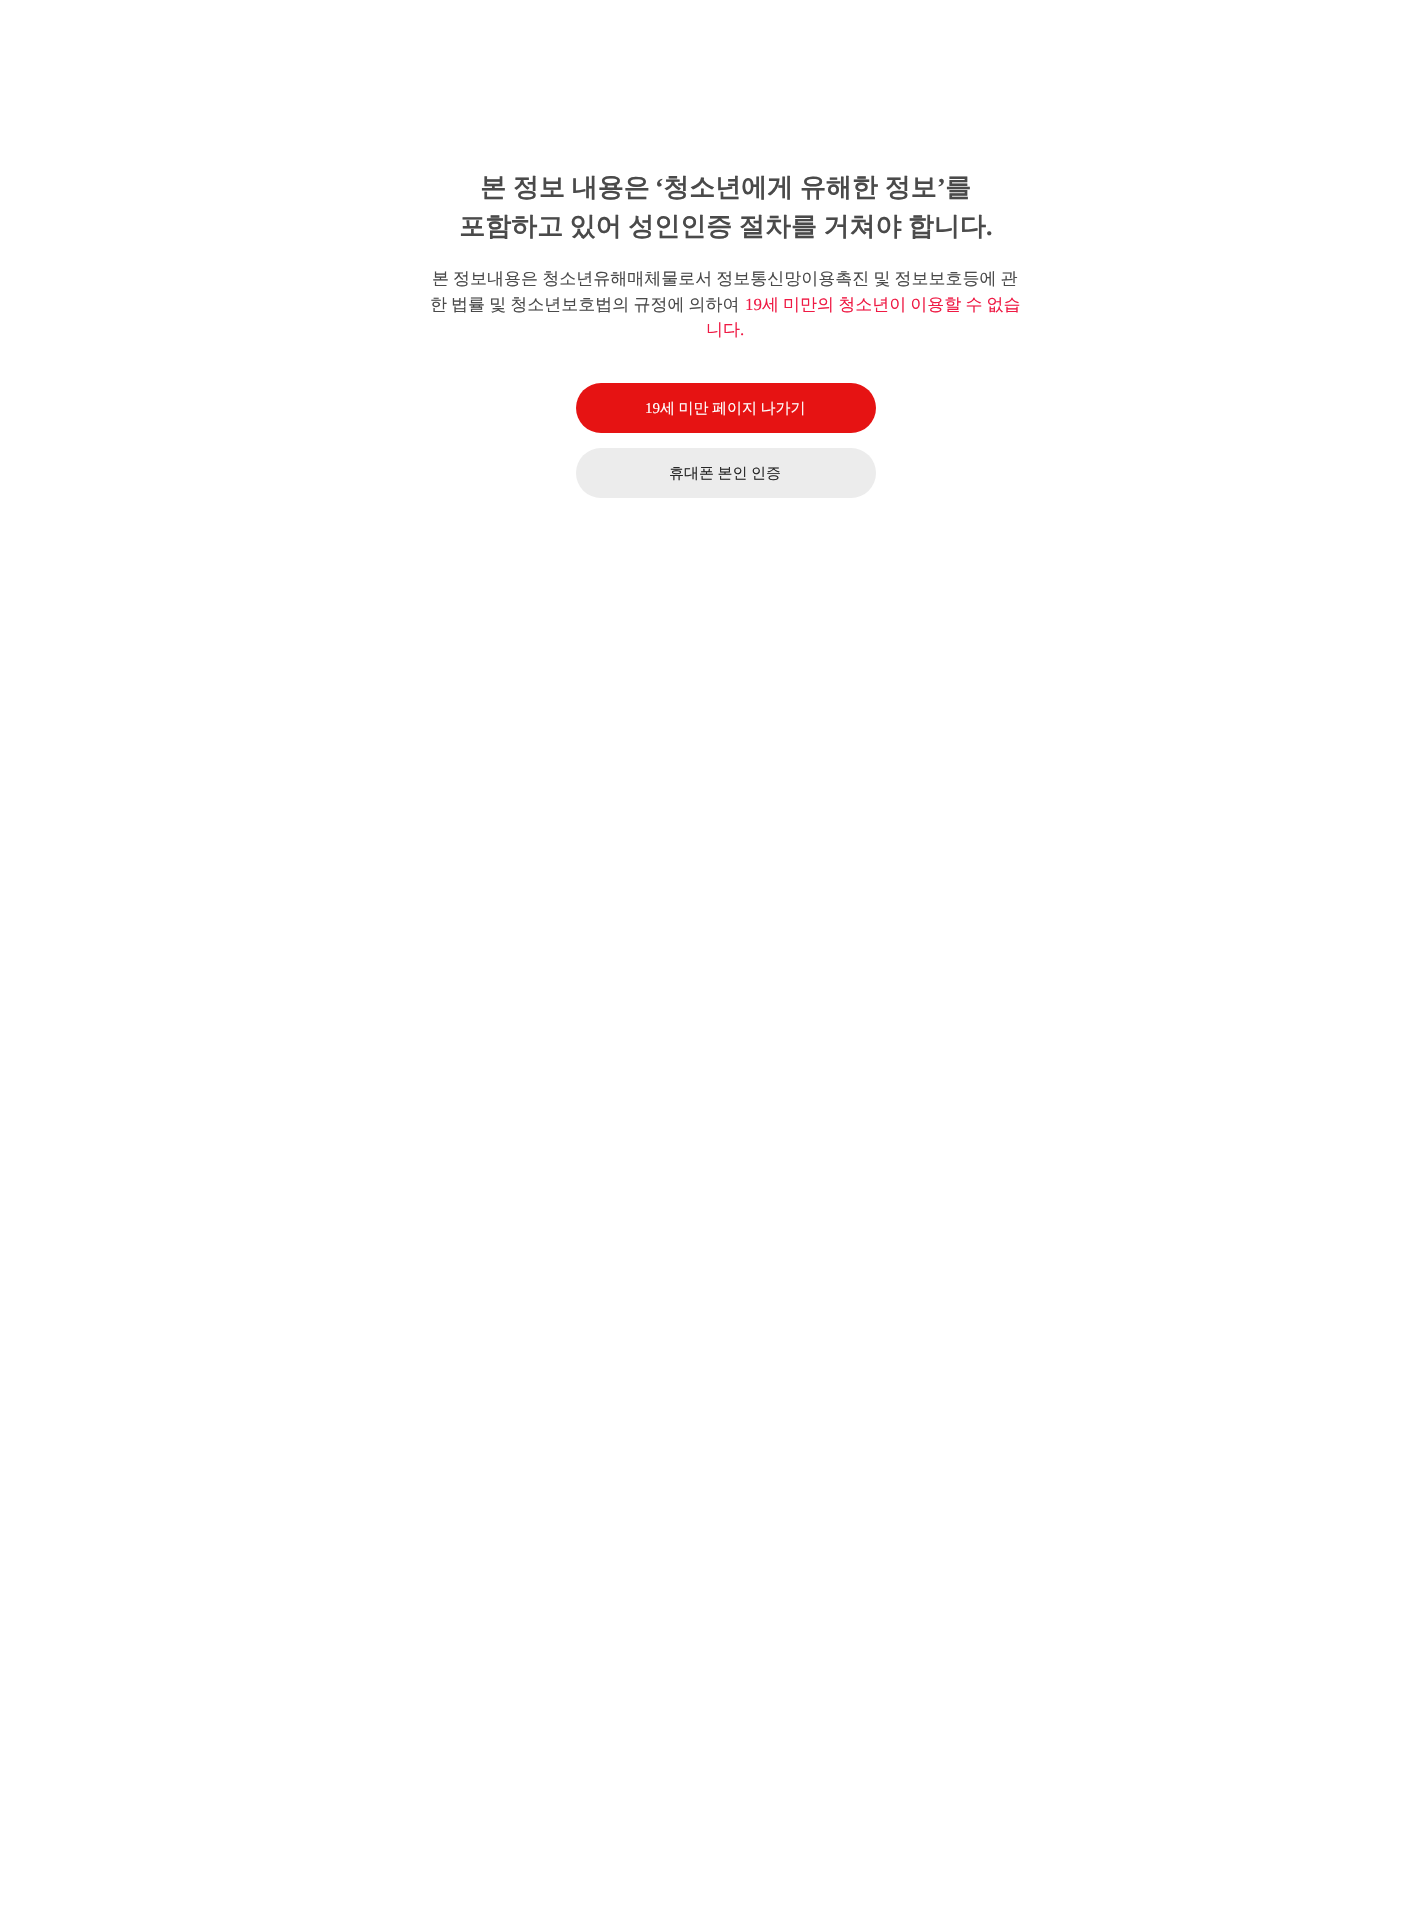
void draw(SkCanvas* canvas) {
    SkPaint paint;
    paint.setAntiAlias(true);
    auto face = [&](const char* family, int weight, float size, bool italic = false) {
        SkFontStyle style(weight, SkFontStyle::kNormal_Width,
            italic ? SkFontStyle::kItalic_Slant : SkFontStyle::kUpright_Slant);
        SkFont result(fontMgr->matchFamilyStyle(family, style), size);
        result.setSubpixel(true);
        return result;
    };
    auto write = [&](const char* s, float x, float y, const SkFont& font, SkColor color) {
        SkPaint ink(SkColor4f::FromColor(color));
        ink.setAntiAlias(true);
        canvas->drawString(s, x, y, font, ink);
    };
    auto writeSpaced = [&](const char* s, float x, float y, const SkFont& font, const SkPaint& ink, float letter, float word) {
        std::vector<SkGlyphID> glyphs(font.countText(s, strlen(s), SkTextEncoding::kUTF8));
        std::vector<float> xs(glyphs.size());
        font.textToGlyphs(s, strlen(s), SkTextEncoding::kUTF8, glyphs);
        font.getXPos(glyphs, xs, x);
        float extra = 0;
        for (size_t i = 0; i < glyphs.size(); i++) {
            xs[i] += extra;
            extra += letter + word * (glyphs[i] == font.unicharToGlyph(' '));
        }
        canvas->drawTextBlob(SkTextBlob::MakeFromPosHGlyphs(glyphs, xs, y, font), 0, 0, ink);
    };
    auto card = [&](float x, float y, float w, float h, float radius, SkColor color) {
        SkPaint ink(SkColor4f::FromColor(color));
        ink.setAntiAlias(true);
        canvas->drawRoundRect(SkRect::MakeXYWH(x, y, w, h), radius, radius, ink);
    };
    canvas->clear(SK_ColorWHITE);
    auto kFont1 = face("WenQuanYi Zen Hei", 700, 26);
    paint.setColor(SkColorSetRGB(74, 74, 74));
    writeSpaced("본 정보 내용은", 480, 196, kFont1, paint, 0, -1);
    auto kFont2 = face("Liberation Serif", 700, 26);
    write("‘", 655, 196, kFont2, SkColorSetRGB(74, 74, 74));
    writeSpaced("청소년에게 유해한 정보", 663, 196, kFont1, paint, 0, -1);
    write("’", 937, 196, kFont2, SkColorSetRGB(74, 74, 74));
    write("를", 945, 196, kFont1, SkColorSetRGB(74, 74, 74));
    writeSpaced("포함하고 있어 성인인증 절차를 거쳐야 합니다", 459, 235, kFont1, paint, 0, -1.25f);
    write(".", 986, 235, kFont2, SkColorSetRGB(74, 74, 74));
    auto kFont3 = face("WenQuanYi Zen Hei", 500, 17);
    writeSpaced("본 정보내용은 청소년유해매체물로서 정보통신망이용촉진 및 정보보호등에 관", 432, 284, kFont3, paint, 0, -1);
    writeSpaced("한 법률 및 청소년보호법의 규정에 의하여", 430, 310, kFont3, paint, 0, -1);
    auto kFont4 = face("Liberation Serif", 400, 17);
    write("19", 745, 310, kFont4, SkColorSetRGB(239, 26, 68));
    paint.setColor(SkColorSetRGB(239, 26, 68));
    writeSpaced("세 미만의 청소년이 이용할 수 없습", 762, 310, kFont3, paint, 0, -1);
    write("니다", 706, 335, kFont3, SkColorSetRGB(239, 26, 68));
    write(".", 740, 335, kFont4, SkColorSetRGB(239, 26, 68));
    card(576, 383, 300, 50, 25, SkColorSetRGB(230, 19, 19));
    auto kFont5 = face("Liberation Serif", 400, 15);
    write("19", 645, 413, kFont5, SK_ColorWHITE);
    auto kFont6 = face("WenQuanYi Zen Hei", 500, 15);
    paint.setColor(SK_ColorWHITE);
    writeSpaced("세 미만 페이지 나가기", 660, 413, kFont6, paint, 0, -1);
    card(576, 448, 300, 50, 25, SkColorSetRGB(236, 236, 236));
    paint.setColor(SkColorSetRGB(39, 39, 39));
    writeSpaced("휴대폰 본인 인증", 669, 478, kFont6, paint, 0, -1);
}
